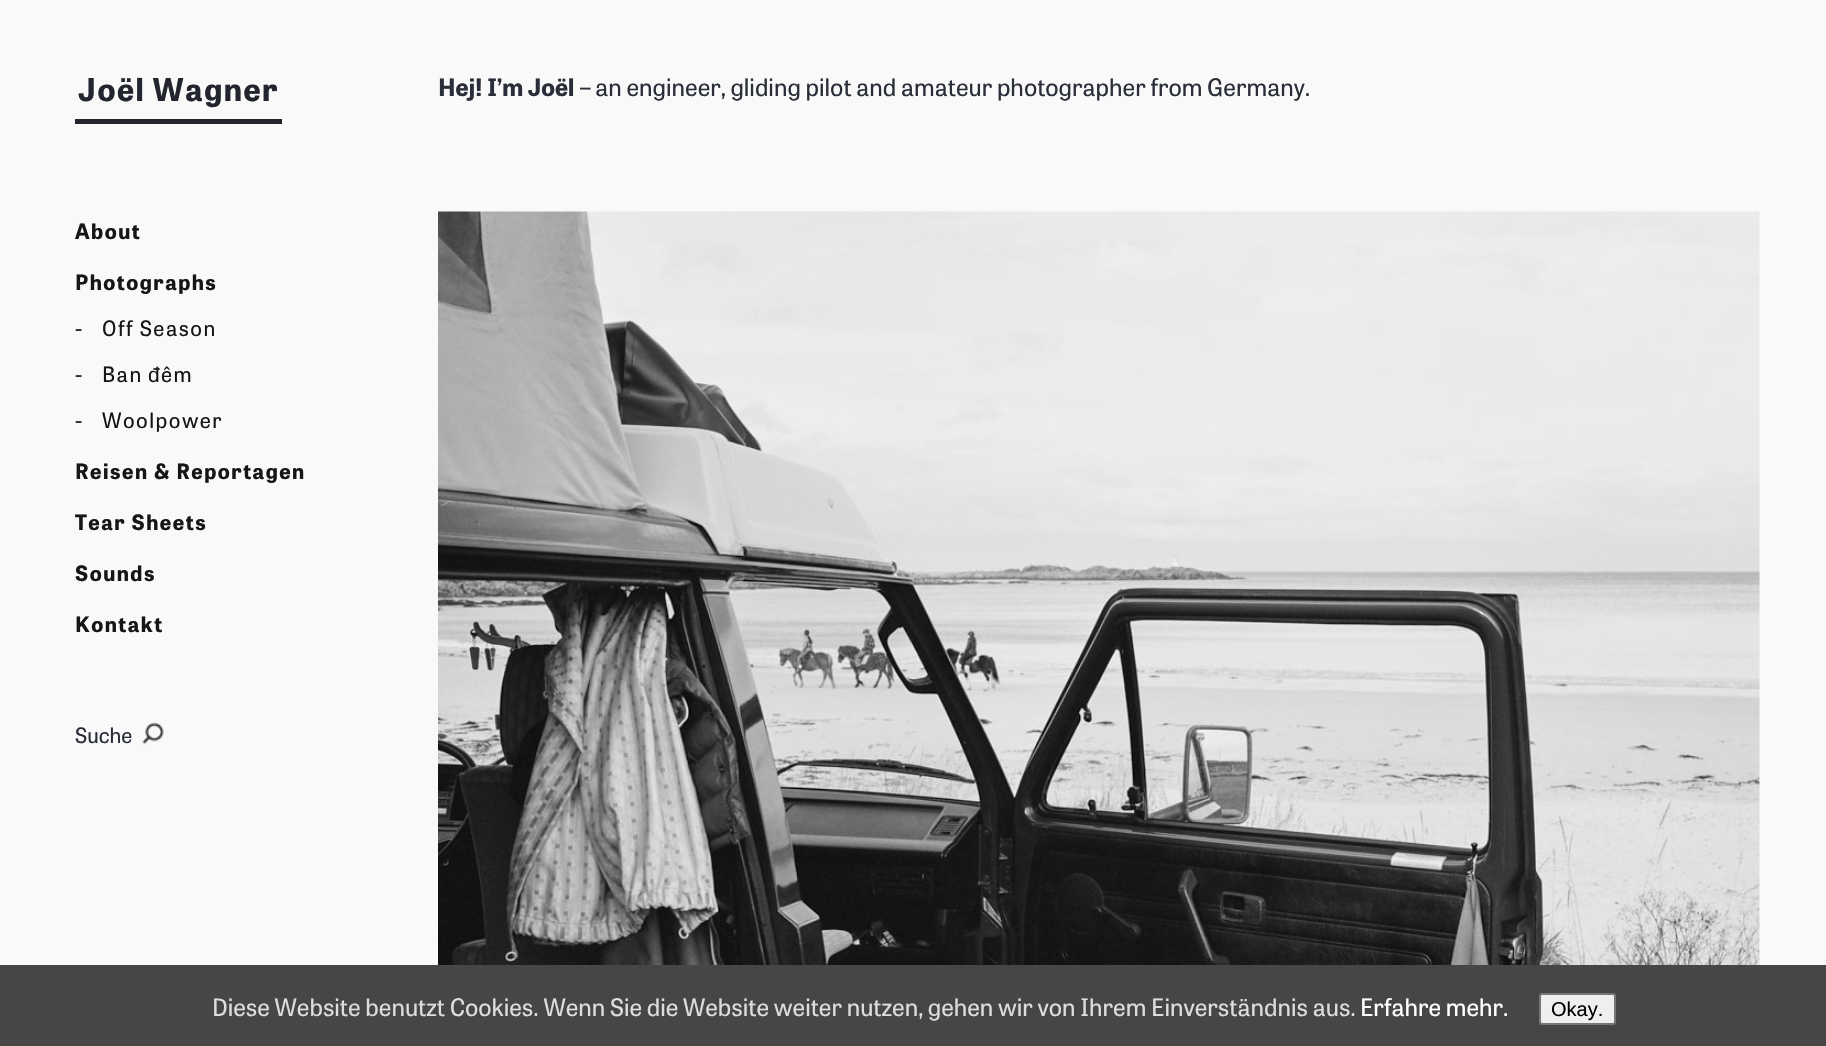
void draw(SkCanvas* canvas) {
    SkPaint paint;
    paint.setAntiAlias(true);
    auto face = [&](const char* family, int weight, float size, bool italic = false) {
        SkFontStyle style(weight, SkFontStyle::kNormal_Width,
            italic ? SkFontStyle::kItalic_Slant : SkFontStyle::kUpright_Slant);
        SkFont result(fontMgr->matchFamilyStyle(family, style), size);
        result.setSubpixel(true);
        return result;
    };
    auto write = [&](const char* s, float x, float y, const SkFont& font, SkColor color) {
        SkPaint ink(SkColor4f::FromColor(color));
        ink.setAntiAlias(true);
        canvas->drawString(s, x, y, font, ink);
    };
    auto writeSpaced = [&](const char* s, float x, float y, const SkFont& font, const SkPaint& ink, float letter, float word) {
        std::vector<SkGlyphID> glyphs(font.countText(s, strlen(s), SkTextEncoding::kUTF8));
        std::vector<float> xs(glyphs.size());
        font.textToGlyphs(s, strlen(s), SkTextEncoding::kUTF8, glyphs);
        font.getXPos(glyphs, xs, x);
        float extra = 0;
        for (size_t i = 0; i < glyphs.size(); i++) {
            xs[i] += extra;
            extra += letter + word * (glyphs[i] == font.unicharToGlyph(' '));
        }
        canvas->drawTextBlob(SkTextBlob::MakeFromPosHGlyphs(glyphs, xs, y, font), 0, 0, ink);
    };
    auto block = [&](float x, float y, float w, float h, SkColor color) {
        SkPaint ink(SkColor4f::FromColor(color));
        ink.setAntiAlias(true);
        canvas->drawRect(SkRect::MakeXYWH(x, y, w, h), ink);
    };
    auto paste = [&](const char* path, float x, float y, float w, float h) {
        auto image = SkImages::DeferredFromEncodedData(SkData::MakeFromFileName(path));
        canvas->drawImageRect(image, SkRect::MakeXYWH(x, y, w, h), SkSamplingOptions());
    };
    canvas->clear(SkColorSetRGB(249, 249, 249));
    block(75, 119, 207, 5, SkColorSetRGB(34, 37, 46));
    auto kFont1 = face("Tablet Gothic", 700, 31.5f);
    paint.setColor(SkColorSetRGB(34, 37, 46));
    writeSpaced("Joël Wagner", 78, 101, kFont1, paint, 1.5f, 0);
    auto kFont2 = face("Tablet Gothic", 700, 21);
    paint.setColor(SkColorSetRGB(22, 22, 22));
    writeSpaced("About", 75, 239, kFont2, paint, 1.5f, 0);
    writeSpaced("Photographs", 75, 290, kFont2, paint, 1.5f, 0);
    auto kFont3 = face("Tablet Gothic", 400, 21);
    writeSpaced("-", 75, 336, kFont3, paint, 1.5f, 0);
    writeSpaced("Off Season", 102, 336, kFont3, paint, 1.5f, 0);
    writeSpaced("-", 75, 382, kFont3, paint, 1.5f, 0);
    writeSpaced("Ban", 102, 382, kFont3, paint, 1.5f, 0);
    auto kFont4 = face("Liberation Sans", 400, 21);
    writeSpaced("đ", 148, 382, kFont4, paint, 1.5f, 0);
    writeSpaced("êm", 161, 382, kFont3, paint, 1.5f, 0);
    writeSpaced("-", 75, 428, kFont3, paint, 1.5f, 0);
    writeSpaced("Woolpower", 102, 428, kFont3, paint, 1.5f, 0);
    writeSpaced("Reisen & Reportagen", 75, 479, kFont2, paint, 1.5f, 0);
    writeSpaced("Tear Sheets", 75, 530, kFont2, paint, 1.5f, 0);
    writeSpaced("Sounds", 75, 581, kFont2, paint, 1.5f, 0);
    writeSpaced("Kontakt", 75, 632, kFont2, paint, 1.5f, 0);
    paste("pic1.png", 142, 722, 22, 23);
    write("Suche", 75, 743, kFont3, SkColorSetRGB(42, 46, 57));
    auto kFont5 = face("Tablet Gothic", 700, 24);
    write("Hej! I’m Joël", 438, 96, kFont5, SkColorSetRGB(42, 46, 57));
    auto kFont6 = face("Tablet Gothic", 400, 24);
    write("– an engineer, gliding pilot and amateur photographer from Germany.", 580, 96, kFont6, SkColorSetRGB(42, 46, 57));
    paste("pic2.png", 438, 211, 1322, 754);
    block(0, 965, 1826, 81, SkColorSetRGB(70, 70, 70));
    write("Diese Website benutzt Cookies. Wenn Sie die Website weiter nutzen, gehen wir von Ihrem Einverständnis aus.", 212, 1016, kFont6, SkColorSetRGB(221, 221, 221));
    write("Erfahre mehr.", 1360, 1016, kFont6, SK_ColorWHITE);
    paint.setColor(SkColorSetRGB(239, 239, 239));
    canvas->drawRoundRect(SkRect::MakeXYWH(1540, 994, 75, 30), 2, 2, paint);
    paint.setStyle(SkPaint::kStroke_Style);
    paint.setStrokeWidth(2);
    paint.setColor(SkColorSetRGB(118, 118, 118));
    canvas->drawRoundRect(SkRect::MakeXYWH(1540, 994, 75, 30), 2, 2, paint);
    auto kFont7 = face("Liberation Sans", 400, 20);
    write("Okay.", 1551, 1016, kFont7, SK_ColorBLACK);
}
